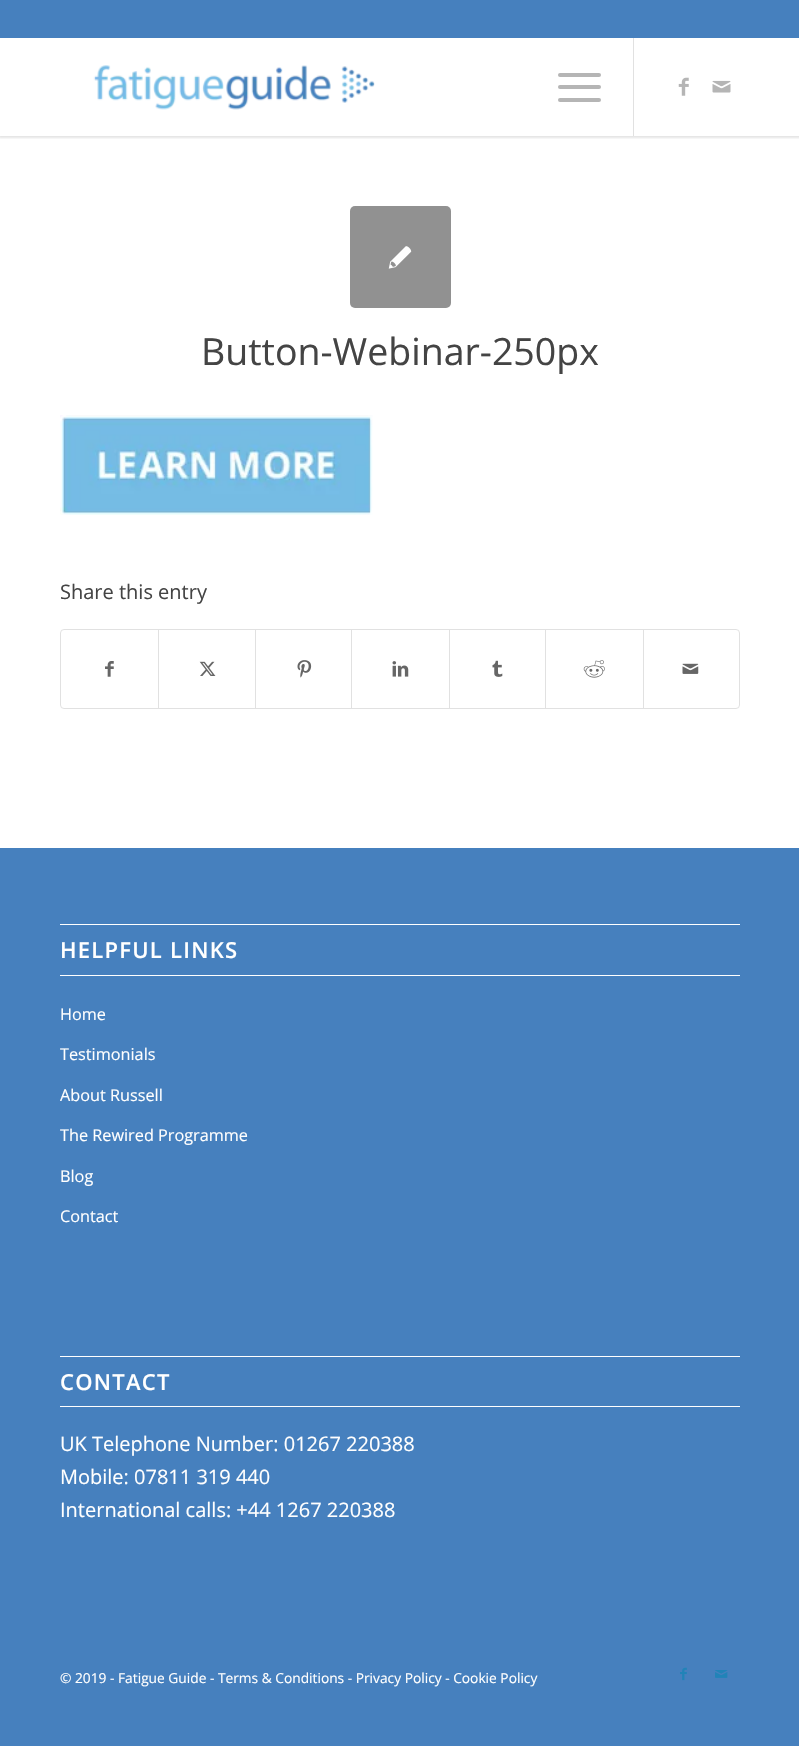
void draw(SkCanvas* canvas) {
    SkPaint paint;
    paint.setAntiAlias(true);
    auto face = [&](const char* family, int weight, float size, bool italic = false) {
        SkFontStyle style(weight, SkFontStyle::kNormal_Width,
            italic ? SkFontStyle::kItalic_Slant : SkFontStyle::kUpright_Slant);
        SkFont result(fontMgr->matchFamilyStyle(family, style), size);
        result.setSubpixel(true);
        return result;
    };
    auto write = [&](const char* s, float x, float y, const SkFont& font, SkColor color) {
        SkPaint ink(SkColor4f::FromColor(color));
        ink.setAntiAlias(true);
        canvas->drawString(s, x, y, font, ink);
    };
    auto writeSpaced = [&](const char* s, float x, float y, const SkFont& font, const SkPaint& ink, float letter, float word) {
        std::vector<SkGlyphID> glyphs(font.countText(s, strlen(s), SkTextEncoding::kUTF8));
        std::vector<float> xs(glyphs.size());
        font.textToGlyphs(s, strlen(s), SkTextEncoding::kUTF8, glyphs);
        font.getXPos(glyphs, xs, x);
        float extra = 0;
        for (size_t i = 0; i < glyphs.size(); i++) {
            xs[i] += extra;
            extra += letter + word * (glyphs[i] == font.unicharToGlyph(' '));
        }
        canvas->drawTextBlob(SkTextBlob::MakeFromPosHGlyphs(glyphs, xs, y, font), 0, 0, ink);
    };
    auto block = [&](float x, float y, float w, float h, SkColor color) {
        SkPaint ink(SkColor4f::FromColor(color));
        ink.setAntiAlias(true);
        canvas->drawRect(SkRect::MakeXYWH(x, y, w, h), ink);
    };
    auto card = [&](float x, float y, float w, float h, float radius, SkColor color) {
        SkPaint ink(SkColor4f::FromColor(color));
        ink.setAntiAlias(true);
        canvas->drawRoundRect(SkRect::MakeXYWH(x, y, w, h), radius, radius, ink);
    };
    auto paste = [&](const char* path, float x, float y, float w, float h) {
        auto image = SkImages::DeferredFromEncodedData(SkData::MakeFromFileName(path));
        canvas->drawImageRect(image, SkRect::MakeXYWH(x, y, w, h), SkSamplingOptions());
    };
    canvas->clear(SkColorSetRGB(70, 128, 190));
    block(0, 38, 799, 810, SK_ColorWHITE);
    canvas->save();
    canvas->clipRect(SkRect::MakeXYWH(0, 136, 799, 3));
    paint.setColor(SkColorSetARGB(26, 0, 0, 0));
    paint.setMaskFilter(SkMaskFilter::MakeBlur(kNormal_SkBlurStyle, 1));
    canvas->drawRect(SkRect::MakeXYWH(-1, -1, 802, 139), paint);
    paint.setMaskFilter(nullptr);
    canvas->restore();
    paste("pic1.png", 93, 65, 282, 45);
    block(633, 36, 1, 100, SkColorSetRGB(225, 225, 225));
    card(558, 85, 43, 4, 2, SkColorSetRGB(181, 181, 181));
    card(558, 73, 43, 4, 2, SkColorSetRGB(181, 181, 181));
    card(558, 98, 43, 4, 2, SkColorSetRGB(181, 181, 181));
    paste("pic2.png", 678, 77, 11, 19);
    paste("pic3.png", 712, 80, 19, 13);
    block(633, 36, 1, 2, SkColorSetRGB(70, 128, 190));
    card(350, 206, 101, 102, 5, SkColorSetRGB(145, 145, 145));
    paste("pic4.png", 388, 246, 24, 23);
    auto kFont1 = face("Open Sans", 400, 37.5f);
    write("Button-Webinar-250px", 201, 365, kFont1, SkColorSetRGB(68, 68, 68));
    paste("pic5.png", 60, 415, 313, 100);
    auto kFont2 = face("Open Sans", 400, 20);
    write("Share this entry", 60, 599, kFont2, SkColorSetRGB(68, 68, 68));
    paint.setStyle(SkPaint::kStroke_Style);
    paint.setStrokeWidth(1);
    paint.setColor(SkColorSetRGB(225, 225, 225));
    canvas->drawRoundRect(SkRect::MakeXYWH(60.5f, 629.5f, 679, 79), 3.5f, 3.5f, paint);
    paste("pic6.png", 105, 661, 9, 16);
    block(158, 630, 1, 78, SkColorSetRGB(225, 225, 225));
    paste("pic7.png", 199, 661, 17, 15);
    block(255, 630, 1, 78, SkColorSetRGB(225, 225, 225));
    paste("pic8.png", 297, 660, 15, 18);
    block(351, 630, 1, 78, SkColorSetRGB(225, 225, 225));
    paste("pic9.png", 392, 661, 17, 16);
    block(449, 630, 1, 78, SkColorSetRGB(225, 225, 225));
    paste("pic10.png", 492, 660, 11, 17);
    block(545, 630, 1, 78, SkColorSetRGB(225, 225, 225));
    paste("pic11.png", 583, 660, 22, 18);
    block(643, 630, 1, 78, SkColorSetRGB(225, 225, 225));
    paste("pic12.png", 682, 663, 17, 11);
    block(60, 924, 680, 1, SK_ColorWHITE);
    block(60, 975, 680, 1, SK_ColorWHITE);
    auto kFont3 = face("Open Sans", 600, 22);
    paint.setStyle(SkPaint::kFill_Style);
    paint.setColor(SK_ColorWHITE);
    writeSpaced("HELPFUL LINKS", 60, 958, kFont3, paint, 1.25f, 0);
    auto kFont4 = face("Open Sans", 400, 16.25f);
    write("Home", 60, 1020, kFont4, SK_ColorWHITE);
    write("Testimonials", 60, 1060, kFont4, SK_ColorWHITE);
    write("About Russell", 60, 1101, kFont4, SK_ColorWHITE);
    write("The Rewired Programme", 60, 1141, kFont4, SK_ColorWHITE);
    write("Blog", 60, 1182, kFont4, SK_ColorWHITE);
    write("Contact", 60, 1222, kFont4, SK_ColorWHITE);
    block(60, 1356, 680, 1, SK_ColorWHITE);
    block(60, 1406, 680, 1, SK_ColorWHITE);
    writeSpaced("CONTACT", 60, 1390, kFont3, paint, 1.25f, 0);
    write("UK Telephone Number: 01267 220388", 60, 1451, kFont2, SK_ColorWHITE);
    write("Mobile: 07811 319 440", 60, 1484, kFont2, SK_ColorWHITE);
    write("International calls: +44 1267 220388", 60, 1517, kFont2, SK_ColorWHITE);
    auto kFont5 = face("Open Sans", 400, 13.75f);
    write("© 2019 - Fatigue Guide - Terms & Conditions - Privacy Policy - Cookie Policy", 60, 1683, kFont5, SK_ColorWHITE);
    paste("pic13.png", 680, 1667, 7, 14);
    paste("pic14.png", 715, 1670, 13, 8);
}
